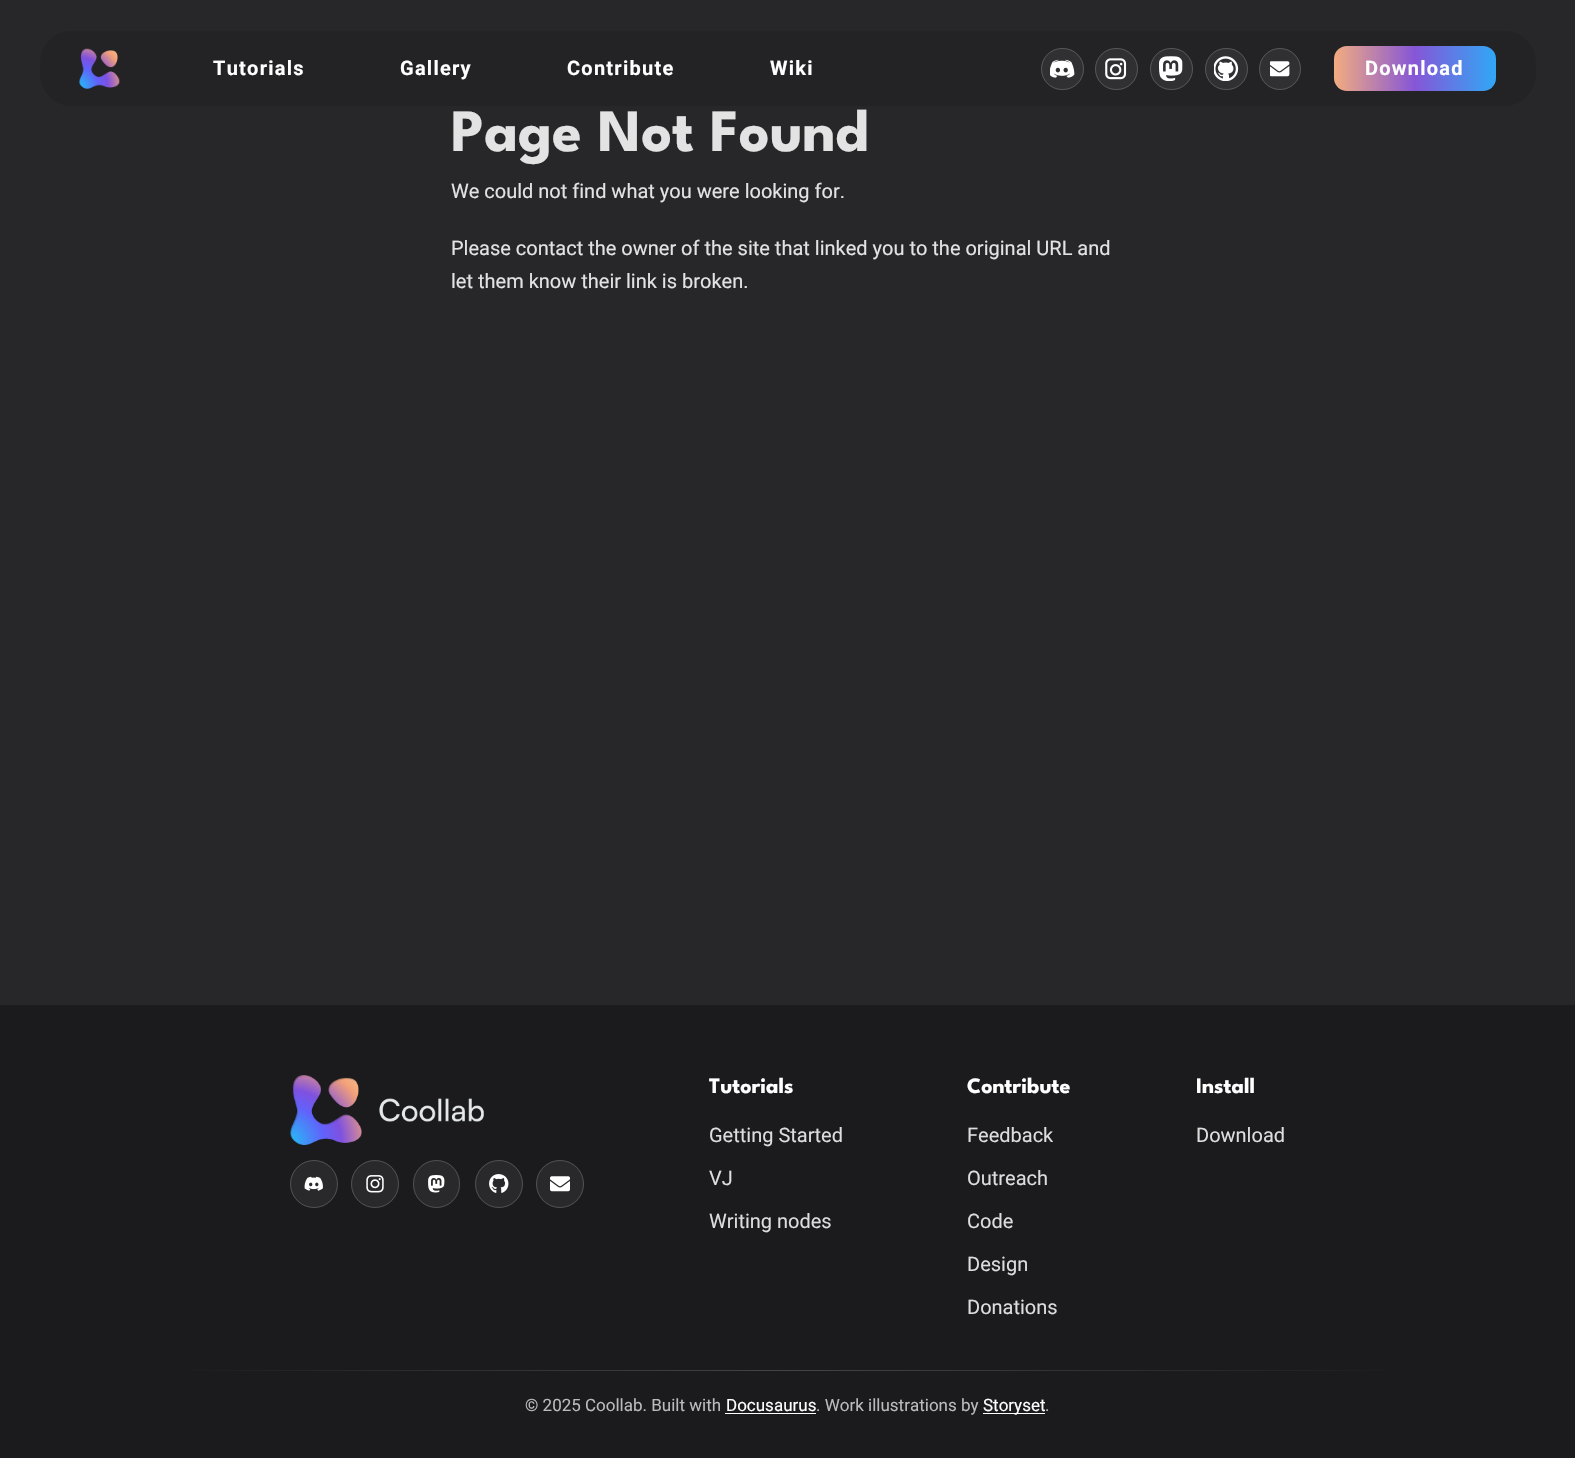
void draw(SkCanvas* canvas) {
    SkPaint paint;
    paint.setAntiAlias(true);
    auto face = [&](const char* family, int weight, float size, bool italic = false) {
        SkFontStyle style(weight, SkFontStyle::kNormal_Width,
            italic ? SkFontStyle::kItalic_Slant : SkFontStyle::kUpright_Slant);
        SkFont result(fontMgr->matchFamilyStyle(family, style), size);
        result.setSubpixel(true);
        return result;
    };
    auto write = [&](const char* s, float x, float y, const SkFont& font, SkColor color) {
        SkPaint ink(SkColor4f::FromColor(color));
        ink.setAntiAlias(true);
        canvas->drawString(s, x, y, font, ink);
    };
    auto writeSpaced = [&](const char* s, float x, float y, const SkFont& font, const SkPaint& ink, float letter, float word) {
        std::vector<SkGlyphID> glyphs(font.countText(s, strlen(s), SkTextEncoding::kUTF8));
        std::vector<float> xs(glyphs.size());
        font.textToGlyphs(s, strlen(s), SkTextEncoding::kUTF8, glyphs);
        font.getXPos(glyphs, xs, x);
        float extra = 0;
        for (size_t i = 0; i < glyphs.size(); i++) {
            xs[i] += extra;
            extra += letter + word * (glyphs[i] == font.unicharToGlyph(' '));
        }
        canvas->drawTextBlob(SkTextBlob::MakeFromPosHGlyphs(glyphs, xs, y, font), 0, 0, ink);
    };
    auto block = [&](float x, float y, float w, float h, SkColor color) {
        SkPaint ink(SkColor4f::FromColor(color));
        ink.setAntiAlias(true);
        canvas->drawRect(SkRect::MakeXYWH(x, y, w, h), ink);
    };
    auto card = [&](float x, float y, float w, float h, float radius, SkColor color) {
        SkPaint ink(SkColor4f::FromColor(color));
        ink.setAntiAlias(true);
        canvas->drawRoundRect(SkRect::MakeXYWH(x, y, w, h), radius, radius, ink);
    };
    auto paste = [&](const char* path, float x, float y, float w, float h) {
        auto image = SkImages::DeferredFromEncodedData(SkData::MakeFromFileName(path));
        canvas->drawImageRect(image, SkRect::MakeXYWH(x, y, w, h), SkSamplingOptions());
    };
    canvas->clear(SkColorSetRGB(39, 39, 42));
    card(40, 31, 1496, 75, 31, SkColorSetRGB(35, 35, 38));
    paste("pic1.png", 79, 48, 41, 41);
    auto kFont1 = face("Roboto", 700, 20);
    paint.setColor(SK_ColorWHITE);
    writeSpaced("Tutorials", 213, 75, kFont1, paint, 1.25f, 0);
    writeSpaced("Gallery", 400, 75, kFont1, paint, 1.25f, 0);
    writeSpaced("Contribute", 567, 75, kFont1, paint, 1.25f, 0);
    writeSpaced("Wiki", 770, 75, kFont1, paint, 1.25f, 0);
    card(1041, 48, 43, 42, 21, SkColorSetRGB(48, 48, 51));
    paint.setStyle(SkPaint::kStroke_Style);
    paint.setStrokeWidth(1);
    paint.setColor(SkColorSetARGB(46, 255, 255, 255));
    canvas->drawRoundRect(SkRect::MakeXYWH(1041.5f, 48.5f, 42, 41), 20.5f, 20.5f, paint);
    paste("pic2.png", 1050, 59, 25, 19);
    card(1095, 48, 43, 42, 21, SkColorSetRGB(48, 48, 51));
    canvas->drawRoundRect(SkRect::MakeXYWH(1095.5f, 48.5f, 42, 41), 20.5f, 20.5f, paint);
    paste("pic3.png", 1105, 58, 22, 22);
    card(1150, 48, 43, 42, 21, SkColorSetRGB(48, 48, 51));
    canvas->drawRoundRect(SkRect::MakeXYWH(1150.5f, 48.5f, 42, 41), 20.5f, 20.5f, paint);
    paste("pic4.png", 1159, 56, 24, 25);
    card(1205, 48, 43, 42, 21, SkColorSetRGB(48, 48, 51));
    canvas->drawRoundRect(SkRect::MakeXYWH(1205.5f, 48.5f, 42, 41), 20.5f, 20.5f, paint);
    paste("pic5.png", 1214, 56, 25, 25);
    paint.setStyle(SkPaint::kFill_Style);
    paint.setColor(SkColorSetRGB(48, 48, 51));
    canvas->drawCircle(1280, 69, 21, paint);
    paint.setStyle(SkPaint::kStroke_Style);
    paint.setColor(SkColorSetARGB(46, 255, 255, 255));
    canvas->drawCircle(1280, 69, 20.5f, paint);
    paste("pic6.png", 1270, 61, 20, 16);
    paint.setStyle(SkPaint::kFill_Style);
    {
        const SkColor colors[] = {SkColorSetRGB(244, 173, 127), SkColorSetRGB(134, 86, 215), SkColorSetRGB(48, 167, 245)};
        const float stops[] = {0, 0.5f, 1};
        const SkPoint ends[] = {{1333, 69}, {1496, 69}};
        paint.setShader(SkGradientShader::MakeLinear(ends, colors, stops, 3, SkTileMode::kClamp));
        paint.setAlpha(255);
    }
    canvas->drawRoundRect(SkRect::MakeXYWH(1334, 46, 162, 45), 13, 13, paint);
    paint.setShader(nullptr);
    paint.setColor(SK_ColorWHITE);
    writeSpaced("Download", 1365, 75, kFont1, paint, 1.25f, 0);
    auto kFont2 = face("League Spartan", 700, 60);
    write("Page Not Found", 451, 151, kFont2, SkColorSetRGB(227, 227, 227));
    auto kFont3 = face("Roboto", 400, 20);
    write("We could not find what you were looking for.", 451, 198, kFont3, SkColorSetRGB(227, 227, 227));
    write("Please contact the owner of the site that linked you to the original URL and", 451, 255, kFont3, SkColorSetRGB(227, 227, 227));
    write("let them know their link is broken.", 451, 288, kFont3, SkColorSetRGB(227, 227, 227));
    block(0, 1005, 1575, 453, SkColorSetRGB(27, 27, 29));
    paste("pic7.png", 290, 1075, 194, 70);
    paint.setColor(SkColorSetRGB(41, 41, 43));
    canvas->drawCircle(314, 1184, 24, paint);
    paint.setStyle(SkPaint::kStroke_Style);
    paint.setColor(SkColorSetARGB(46, 255, 255, 255));
    canvas->drawCircle(314, 1184, 23.5f, paint);
    paste("pic8.png", 304, 1176, 19, 15);
    paint.setStyle(SkPaint::kFill_Style);
    paint.setColor(SkColorSetRGB(41, 41, 43));
    canvas->drawCircle(375, 1184, 24, paint);
    paint.setStyle(SkPaint::kStroke_Style);
    paint.setColor(SkColorSetARGB(46, 255, 255, 255));
    canvas->drawCircle(375, 1184, 23.5f, paint);
    paste("pic9.png", 366, 1175, 18, 18);
    card(413, 1160, 47, 48, 23.5f, SkColorSetRGB(41, 41, 43));
    canvas->drawRoundRect(SkRect::MakeXYWH(413.5f, 1160.5f, 46, 47), 23, 23, paint);
    paste("pic10.png", 428, 1175, 17, 18);
    paint.setStyle(SkPaint::kFill_Style);
    paint.setColor(SkColorSetRGB(41, 41, 43));
    canvas->drawCircle(499, 1184, 24, paint);
    paint.setStyle(SkPaint::kStroke_Style);
    paint.setColor(SkColorSetARGB(46, 255, 255, 255));
    canvas->drawCircle(499, 1184, 23.5f, paint);
    paste("pic11.png", 489, 1174, 20, 19);
    paint.setStyle(SkPaint::kFill_Style);
    paint.setColor(SkColorSetRGB(41, 41, 43));
    canvas->drawCircle(560, 1184, 24, paint);
    paint.setStyle(SkPaint::kStroke_Style);
    paint.setColor(SkColorSetARGB(46, 255, 255, 255));
    canvas->drawCircle(560, 1184, 23.5f, paint);
    paste("pic12.png", 550, 1176, 20, 16);
    auto kFont4 = face("League Spartan", 700, 22);
    write("Tutorials", 709, 1093, kFont4, SK_ColorWHITE);
    write("Getting Started", 709, 1142, kFont3, SkColorSetRGB(221, 221, 221));
    write("VJ", 709, 1185, kFont3, SkColorSetRGB(221, 221, 221));
    write("Writing nodes", 709, 1228, kFont3, SkColorSetRGB(221, 221, 221));
    write("Contribute", 967, 1093, kFont4, SK_ColorWHITE);
    write("Feedback", 967, 1142, kFont3, SkColorSetRGB(221, 221, 221));
    write("Outreach", 967, 1185, kFont3, SkColorSetRGB(221, 221, 221));
    write("Code", 967, 1228, kFont3, SkColorSetRGB(221, 221, 221));
    write("Design", 967, 1271, kFont3, SkColorSetRGB(221, 221, 221));
    write("Donations", 967, 1314, kFont3, SkColorSetRGB(221, 221, 221));
    write("Install", 1196, 1093, kFont4, SK_ColorWHITE);
    write("Download", 1196, 1142, kFont3, SkColorSetRGB(221, 221, 221));
    paint.setStyle(SkPaint::kFill_Style);
    {
        const SkColor colors[] = {SkColorSetRGB(27, 27, 29), SkColorSetRGB(68, 68, 70), SkColorSetRGB(27, 27, 29)};
        const float stops[] = {0, 0.5f, 1};
        const SkPoint ends[] = {{150, 1371}, {1425, 1371}};
        paint.setShader(SkGradientShader::MakeLinear(ends, colors, stops, 3, SkTileMode::kClamp));
        paint.setAlpha(255);
    }
    canvas->drawRect(SkRect::MakeXYWH(189, 1370, 1197, 1), paint);
    auto kFont5 = face("Roboto", 400, 17);
    write("© 2025 Coollab. Built with", 525, 1411, kFont5, SkColorSetRGB(187, 187, 187));
    write("Docusaurus", 726, 1411, kFont5, SK_ColorWHITE);
    block(725, 1413, 91, 1, SK_ColorWHITE);
    write(". Work illustrations by", 816, 1411, kFont5, SkColorSetRGB(187, 187, 187));
    block(983, 1413, 62, 1, SK_ColorWHITE);
    write("Storyset", 983, 1411, kFont5, SK_ColorWHITE);
    write(".", 1045, 1411, kFont5, SkColorSetRGB(187, 187, 187));
}
